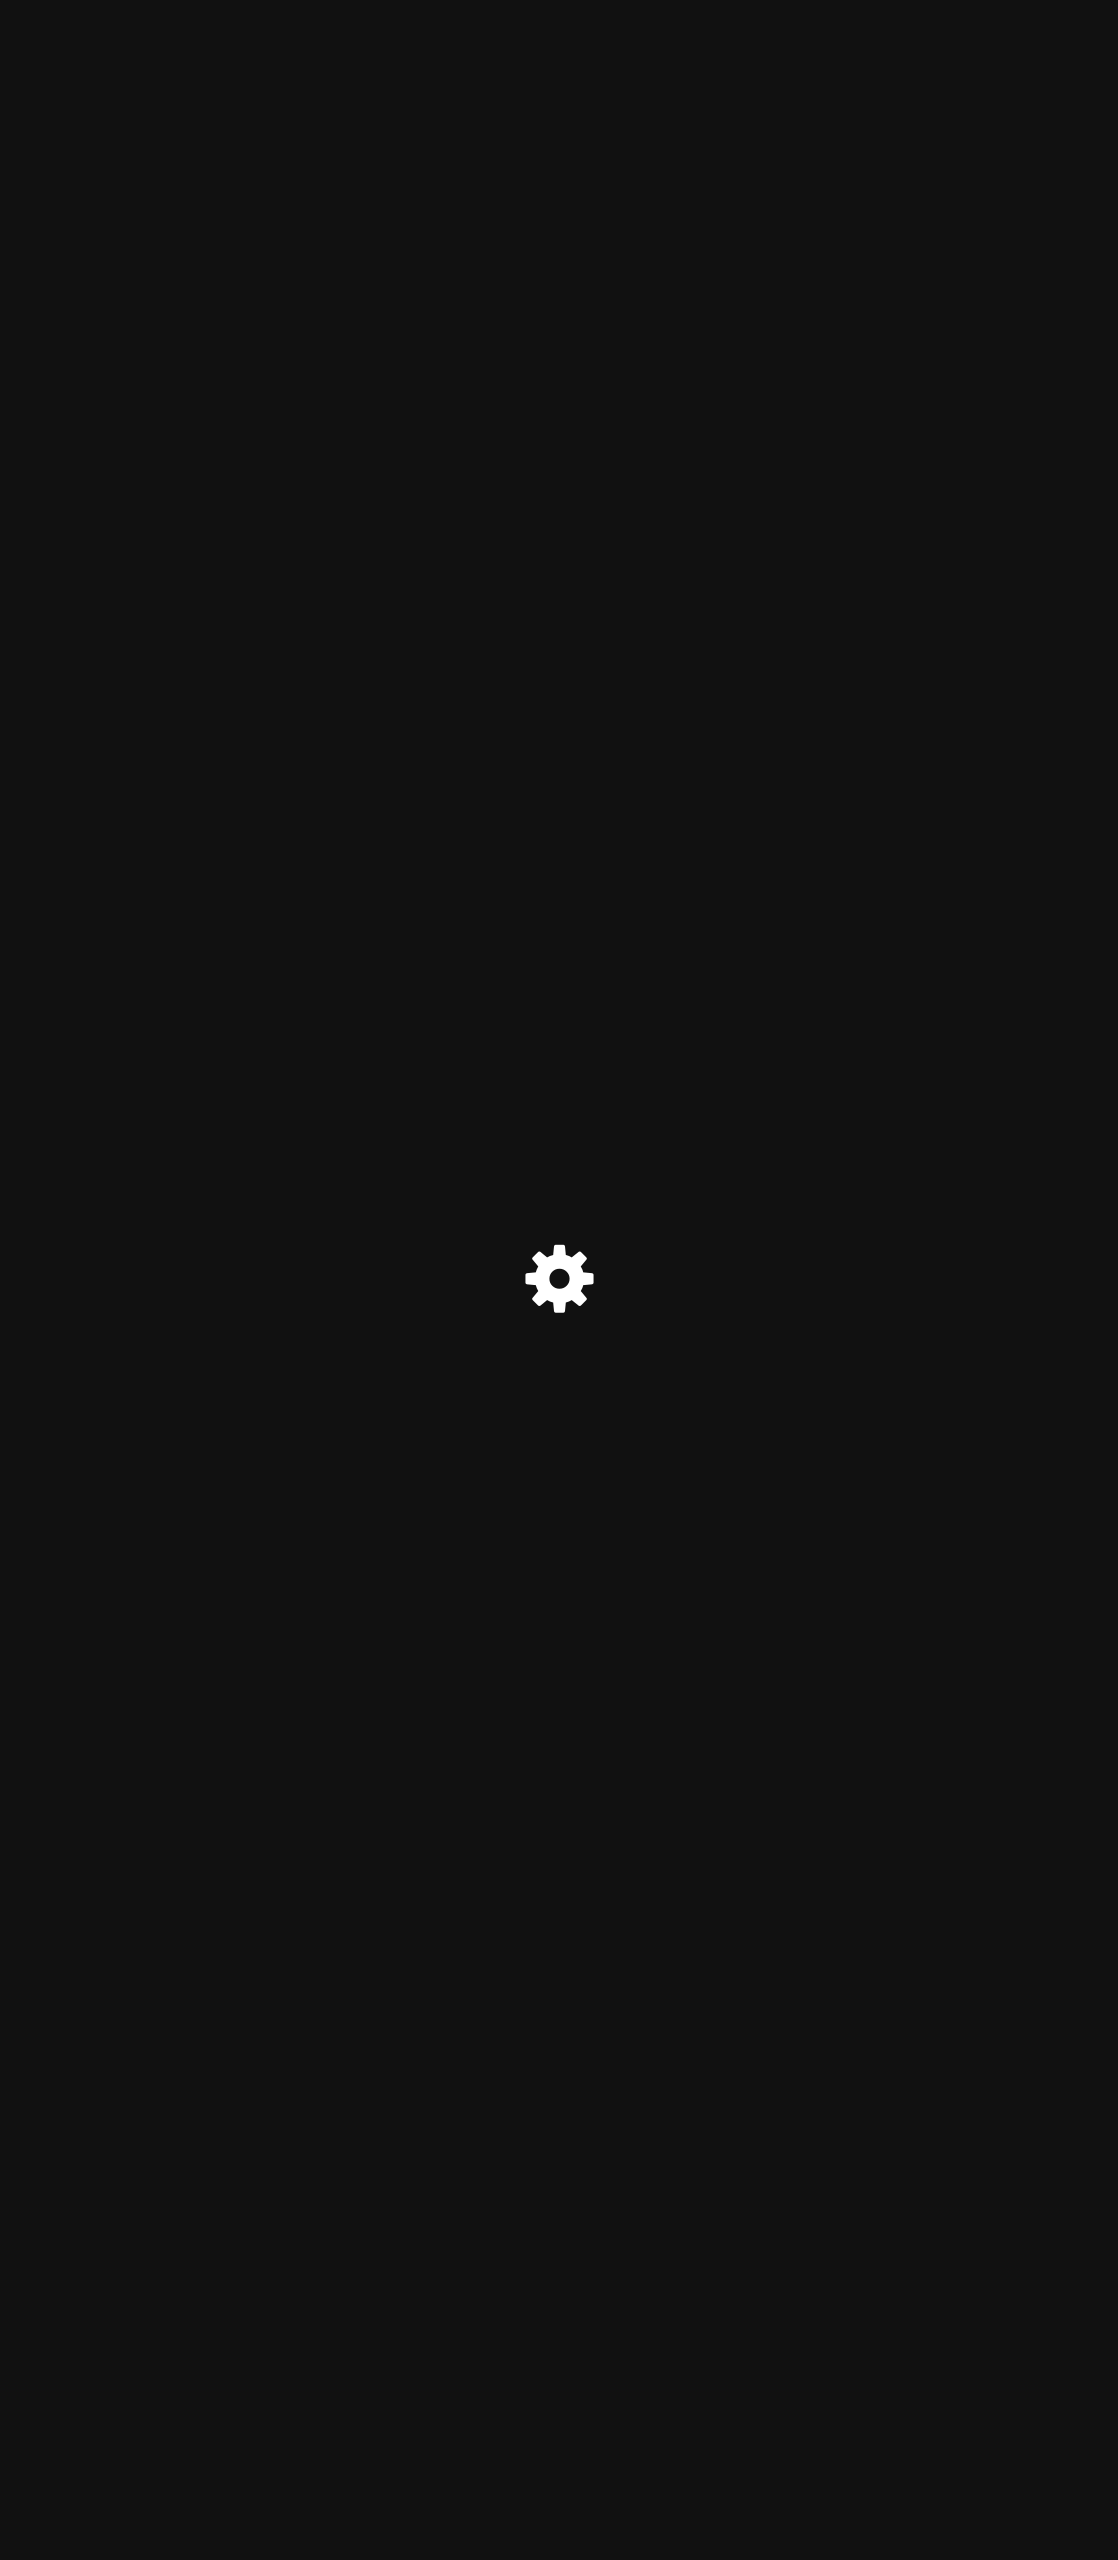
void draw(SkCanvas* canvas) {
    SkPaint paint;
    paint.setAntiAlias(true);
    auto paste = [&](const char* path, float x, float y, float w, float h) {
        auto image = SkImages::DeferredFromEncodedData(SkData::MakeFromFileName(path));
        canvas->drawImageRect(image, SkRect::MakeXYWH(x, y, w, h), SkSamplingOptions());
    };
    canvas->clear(SkColorSetRGB(17, 17, 17));
    paste("pic1.png", 525, 1244, 69, 69);
}
